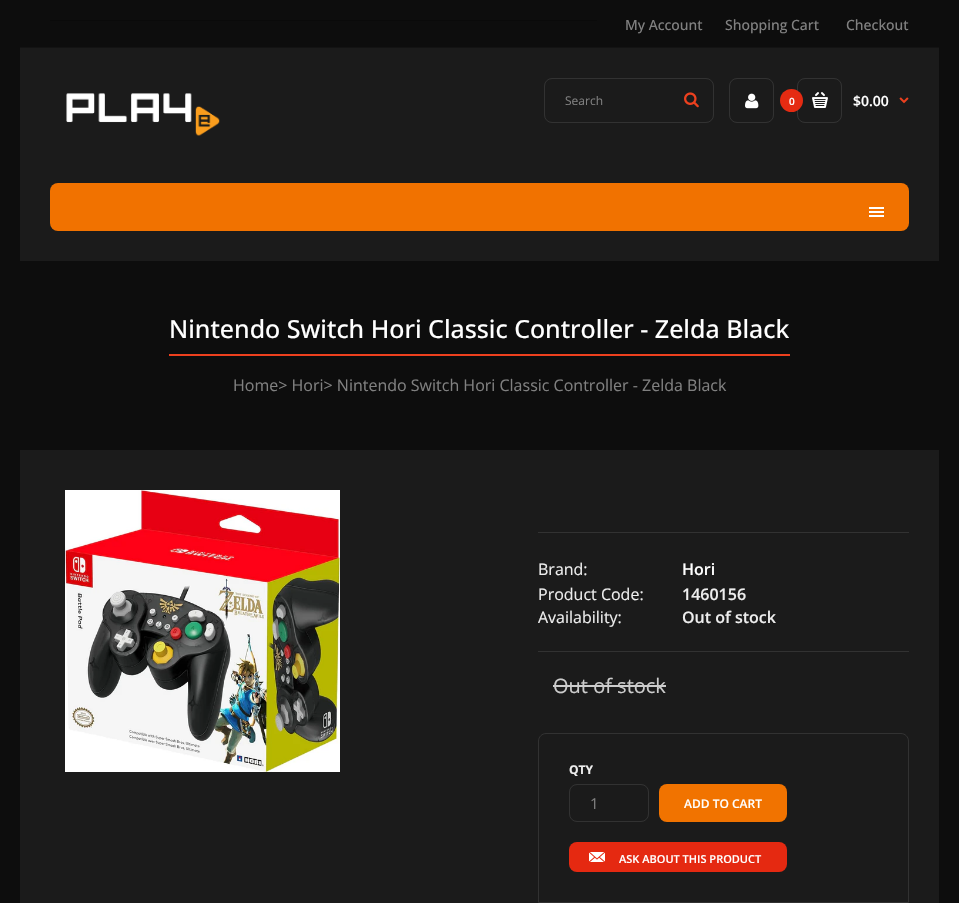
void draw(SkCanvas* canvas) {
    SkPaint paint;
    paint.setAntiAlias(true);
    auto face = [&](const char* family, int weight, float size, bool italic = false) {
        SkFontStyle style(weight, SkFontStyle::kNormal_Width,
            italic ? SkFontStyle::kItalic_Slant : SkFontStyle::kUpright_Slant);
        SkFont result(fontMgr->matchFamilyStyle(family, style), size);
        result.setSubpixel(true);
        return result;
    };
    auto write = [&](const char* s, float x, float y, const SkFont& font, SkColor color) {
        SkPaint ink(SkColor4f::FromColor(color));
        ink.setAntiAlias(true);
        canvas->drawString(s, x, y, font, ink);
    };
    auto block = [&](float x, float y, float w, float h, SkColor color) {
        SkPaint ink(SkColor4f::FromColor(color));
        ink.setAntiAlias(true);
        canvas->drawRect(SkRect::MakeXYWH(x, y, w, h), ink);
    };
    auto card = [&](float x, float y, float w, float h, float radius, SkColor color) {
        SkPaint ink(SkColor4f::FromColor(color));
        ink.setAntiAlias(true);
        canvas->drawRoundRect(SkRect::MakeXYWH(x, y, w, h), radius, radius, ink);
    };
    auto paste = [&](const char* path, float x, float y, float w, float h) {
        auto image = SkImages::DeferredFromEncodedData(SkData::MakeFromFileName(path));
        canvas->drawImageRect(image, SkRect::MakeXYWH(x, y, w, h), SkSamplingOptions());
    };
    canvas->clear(SkColorSetRGB(13, 13, 13));
    block(20, 47, 919, 1, SkColorSetRGB(19, 19, 19));
    block(50, 20, 547, 1, SkColorSetRGB(10, 10, 10));
    auto kFont1 = face("Open Sans", 500, 14);
    write("My Account", 625, 30, kFont1, SkColorSetRGB(128, 128, 128));
    write("Shopping Cart", 725, 30, kFont1, SkColorSetRGB(128, 128, 128));
    write("Checkout", 846, 30, kFont1, SkColorSetRGB(128, 128, 128));
    block(20, 48, 919, 213, SkColorSetRGB(27, 27, 27));
    paste("pic1.png", 66, 93, 154, 43);
    paint.setStyle(SkPaint::kStroke_Style);
    paint.setStrokeWidth(1);
    paint.setColor(SkColorSetRGB(50, 50, 50));
    canvas->drawRoundRect(SkRect::MakeXYWH(544.5f, 78.5f, 169, 44), 7.5f, 7.5f, paint);
    auto kFont2 = face("Open Sans", 400, 12);
    write("Search", 565, 105, kFont2, SkColorSetRGB(128, 128, 128));
    paste("pic2.png", 684, 92, 15, 16);
    canvas->drawRoundRect(SkRect::MakeXYWH(729.5f, 78.5f, 44, 44), 7.5f, 7.5f, paint);
    paste("pic3.png", 745, 93, 14, 16);
    canvas->drawRoundRect(SkRect::MakeXYWH(797.5f, 78.5f, 44, 44), 7.5f, 7.5f, paint);
    paint.setStyle(SkPaint::kFill_Style);
    paint.setColor(SkColorSetRGB(229, 43, 18));
    canvas->drawCircle(791.5f, 100.5f, 11.5f, paint);
    auto kFont3 = face("Open Sans", 600, 10);
    write("0", 789, 105, kFont3, SK_ColorWHITE);
    paste("pic4.png", 812, 92, 16, 16);
    auto kFont4 = face("Open Sans", 600, 14);
    write("$0.00", 853, 106, kFont4, SK_ColorWHITE);
    paste("pic5.png", 899, 97, 10, 7);
    card(50, 183, 859, 48, 8, SkColorSetRGB(241, 114, 0));
    block(869, 207, 15, 2, SK_ColorWHITE);
    block(869, 211, 15, 2, SK_ColorWHITE);
    block(869, 215, 15, 2, SK_ColorWHITE);
    block(169, 354, 621, 2, SkColorSetRGB(237, 64, 30));
    auto kFont5 = face("Open Sans", 500, 25);
    write("Nintendo Switch Hori Classic Controller - Zelda Black", 169, 338, kFont5, SK_ColorWHITE);
    auto kFont6 = face("Open Sans", 400, 16);
    write("Home> Hori> Nintendo Switch Hori Classic Controller - Zelda Black", 233, 391, kFont6, SkColorSetRGB(128, 128, 128));
    block(20, 450, 919, 453, SkColorSetRGB(27, 27, 27));
    paste("pic6.png", 65, 490, 275, 282);
    block(538, 532, 371, 1, SkColorSetRGB(50, 50, 50));
    block(538, 651, 371, 1, SkColorSetRGB(50, 50, 50));
    write("Brand:", 538, 575, kFont6, SkColorSetRGB(237, 237, 237));
    auto kFont7 = face("Open Sans", 600, 16);
    write("Hori", 682, 575, kFont7, SK_ColorWHITE);
    write("Product Code:", 538, 600, kFont6, SkColorSetRGB(237, 237, 237));
    write("1460156", 682, 600, kFont7, SkColorSetRGB(237, 237, 237));
    write("Availability:", 538, 623, kFont6, SkColorSetRGB(237, 237, 237));
    write("Out of stock", 682, 623, kFont7, SkColorSetRGB(237, 237, 237));
    auto kFont8 = face("Open Sans", 400, 20);
    write("Out of stock", 553, 693, kFont8, SkColorSetRGB(204, 204, 204));
    block(553, 685, 113, 2, SkColorSetRGB(204, 204, 204));
    paint.setStyle(SkPaint::kStroke_Style);
    paint.setColor(SkColorSetRGB(50, 50, 50));
    canvas->drawPath(SkPathBuilder().moveTo(546, 733.5f).lineTo(901, 733.5f).cubicTo(905, 733.5f, 908.5f, 737, 908.5f, 741).lineTo(908.5f, 902.5f).lineTo(538.5f, 902.5f).lineTo(538.5f, 741).cubicTo(538.5f, 737, 542, 733.5f, 546, 733.5f).close().detach(), paint);
    auto kFont9 = face("Open Sans", 700, 12);
    write("QTY", 569, 774, kFont9, SkColorSetRGB(237, 237, 237));
    canvas->drawRoundRect(SkRect::MakeXYWH(569.5f, 784.5f, 79, 37), 7.5f, 7.5f, paint);
    auto kFont10 = face("Open Sans", 400, 15);
    write("1", 590, 809, kFont10, SkColorSetRGB(128, 128, 128));
    card(659, 784, 128, 38, 8, SkColorSetRGB(241, 115, 0));
    auto kFont11 = face("Open Sans", 600, 12);
    write("ADD TO CART", 684, 808, kFont11, SK_ColorWHITE);
    card(569, 842, 218, 30, 8, SkColorSetRGB(229, 41, 17));
    paste("pic7.png", 589, 852, 16, 10);
    auto kFont12 = face("Open Sans", 600, 11);
    write("ASK ABOUT THIS PRODUCT", 619, 863, kFont12, SK_ColorWHITE);
}
